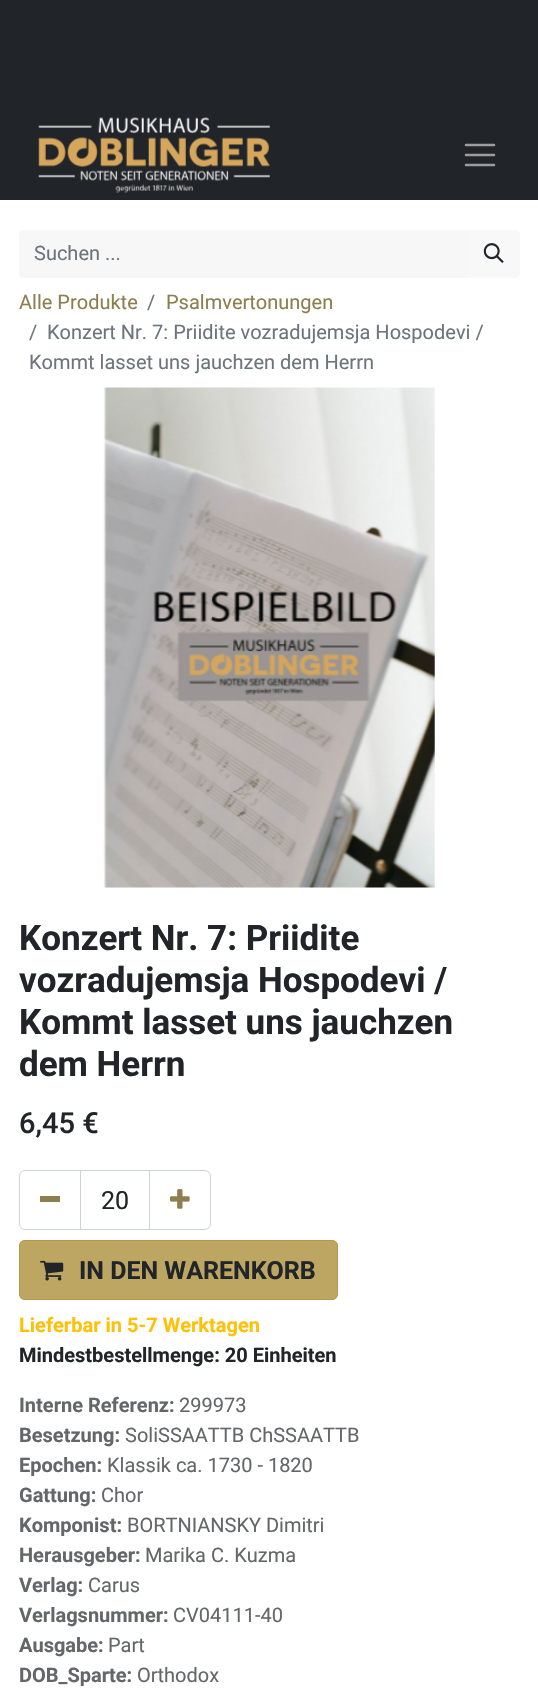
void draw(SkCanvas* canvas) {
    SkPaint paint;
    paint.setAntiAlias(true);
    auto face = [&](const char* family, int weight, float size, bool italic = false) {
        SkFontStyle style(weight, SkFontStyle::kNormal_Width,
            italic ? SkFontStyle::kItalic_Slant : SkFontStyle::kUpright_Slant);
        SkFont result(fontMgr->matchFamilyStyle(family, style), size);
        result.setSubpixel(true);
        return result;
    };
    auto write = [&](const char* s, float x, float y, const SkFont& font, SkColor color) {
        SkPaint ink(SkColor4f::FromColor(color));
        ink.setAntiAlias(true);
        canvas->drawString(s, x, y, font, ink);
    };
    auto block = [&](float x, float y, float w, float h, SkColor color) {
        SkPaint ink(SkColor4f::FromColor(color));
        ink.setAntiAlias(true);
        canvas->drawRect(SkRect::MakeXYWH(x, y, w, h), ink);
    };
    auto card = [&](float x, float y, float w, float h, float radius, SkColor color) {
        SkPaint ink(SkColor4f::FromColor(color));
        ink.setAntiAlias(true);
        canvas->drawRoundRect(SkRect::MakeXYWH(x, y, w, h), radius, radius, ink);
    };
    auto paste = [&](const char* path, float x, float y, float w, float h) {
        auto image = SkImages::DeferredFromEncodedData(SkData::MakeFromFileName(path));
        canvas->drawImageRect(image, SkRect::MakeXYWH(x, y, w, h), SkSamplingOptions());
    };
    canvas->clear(SK_ColorWHITE);
    block(0, 0, 538, 200, SkColorSetRGB(33, 37, 41));
    paste("pic1.png", 38, 117, 232, 76);
    paint.setStyle(SkPaint::kStroke_Style);
    paint.setStrokeWidth(2.5f);
    paint.setStrokeCap(SkPaint::kRound_Cap);
    paint.setColor(SkColorSetRGB(155, 157, 159));
    canvas->drawPath(SkPathBuilder().moveTo(466, 145).lineTo(494, 145).moveTo(466, 155).lineTo(494, 155).moveTo(466, 165).lineTo(494, 165).detach(), paint);
    paint.setStyle(SkPaint::kFill_Style);
    paint.setColor(SkColorSetRGB(247, 247, 247));
    canvas->drawPath(SkPathBuilder().moveTo(24, 230).lineTo(469, 230).lineTo(469, 278).lineTo(24, 278).cubicTo(21, 278, 19, 276, 19, 273).lineTo(19, 235).cubicTo(19, 232, 21, 230, 24, 230).close().detach(), paint);
    auto kFont1 = face("Roboto", 400, 20);
    write("Suchen ...", 34, 260, kFont1, SkColorSetRGB(108, 117, 125));
    paint.setColor(SkColorSetARGB(219, 247, 247, 247));
    canvas->drawPath(SkPathBuilder().moveTo(468, 230).lineTo(515, 230).cubicTo(518, 230, 520, 232, 520, 235).lineTo(520, 273).cubicTo(520, 276, 518, 278, 515, 278).lineTo(468, 278).close().detach(), paint);
    paste("pic2.png", 483, 243, 21, 20);
    write("Alle Produkte", 19, 309, kFont1, SkColorSetRGB(141, 126, 79));
    write("/", 147, 309, kFont1, SkColorSetRGB(108, 117, 125));
    write("Psalmvertonungen", 166, 309, kFont1, SkColorSetRGB(141, 126, 79));
    write("/", 29, 339, kFont1, SkColorSetRGB(108, 117, 125));
    write("Konzert Nr. 7: Priidite vozradujemsja Hospodevi /", 47, 339, kFont1, SkColorSetRGB(108, 117, 125));
    write("Kommt lasset uns jauchzen dem Herrn", 29, 369, kFont1, SkColorSetRGB(108, 117, 125));
    paste("pic3.png", 103, 387, 332, 501);
    auto kFont2 = face("Roboto", 700, 35);
    write("Konzert Nr. 7: Priidite", 19, 950, kFont2, SkColorSetRGB(33, 37, 41));
    write("vozradujemsja Hospodevi /", 19, 992, kFont2, SkColorSetRGB(33, 37, 41));
    write("Kommt lasset uns jauchzen", 19, 1034, kFont2, SkColorSetRGB(33, 37, 41));
    write("dem Herrn", 19, 1076, kFont2, SkColorSetRGB(33, 37, 41));
    auto kFont3 = face("Roboto", 500, 29);
    write("6,45 €", 19, 1133, kFont3, SkColorSetRGB(33, 37, 41));
    paint.setStyle(SkPaint::kStroke_Style);
    paint.setStrokeWidth(1);
    paint.setStrokeCap(SkPaint::kButt_Cap);
    paint.setColor(SkColorSetRGB(206, 212, 218));
    canvas->drawRect(SkRect::MakeXYWH(80.5f, 1170.5f, 69, 59), paint);
    canvas->drawPath(SkPathBuilder().moveTo(25, 1170.5f).lineTo(80.5f, 1170.5f).lineTo(80.5f, 1229.5f).lineTo(25, 1229.5f).cubicTo(22, 1229.5f, 19.5f, 1227, 19.5f, 1224).lineTo(19.5f, 1176).cubicTo(19.5f, 1173, 22, 1170.5f, 25, 1170.5f).close().detach(), paint);
    block(40, 1196, 20, 6, SkColorSetRGB(141, 126, 79));
    auto kFont4 = face("Roboto", 400, 25);
    write("20", 101, 1209, kFont4, SkColorSetRGB(33, 37, 41));
    canvas->drawPath(SkPathBuilder().moveTo(149.5f, 1170.5f).lineTo(205, 1170.5f).cubicTo(208, 1170.5f, 210.5f, 1173, 210.5f, 1176).lineTo(210.5f, 1224).cubicTo(210.5f, 1227, 208, 1229.5f, 205, 1229.5f).lineTo(149.5f, 1229.5f).close().detach(), paint);
    paste("pic4.png", 170, 1189, 20, 20);
    card(19, 1240, 319, 60, 6, SkColorSetRGB(188, 166, 98));
    paint.setColor(SkColorSetARGB(219, 177, 151, 72));
    canvas->drawRoundRect(SkRect::MakeXYWH(19.5f, 1240.5f, 318, 59), 5.5f, 5.5f, paint);
    paste("pic5.png", 40, 1260, 24, 21);
    auto kFont5 = face("Roboto", 700, 25);
    write("IN DEN WARENKORB", 79, 1279, kFont5, SkColorSetRGB(33, 37, 41));
    auto kFont6 = face("Roboto", 700, 20);
    write("Lieferbar in 5-7 Werktagen", 19, 1332, kFont6, SkColorSetRGB(255, 193, 7));
    write("Mindestbestellmenge: 20 Einheiten", 19, 1362, kFont6, SkColorSetRGB(33, 37, 41));
    write("Interne Referenz:", 19, 1412, kFont6, SkColorSetRGB(100, 102, 105));
    write("299973", 179, 1412, kFont1, SkColorSetRGB(100, 102, 105));
    write("Besetzung:", 19, 1442, kFont6, SkColorSetRGB(100, 102, 105));
    write("SoliSSAATTB ChSSAATTB", 125, 1442, kFont1, SkColorSetRGB(100, 102, 105));
    write("Epochen:", 19, 1472, kFont6, SkColorSetRGB(100, 102, 105));
    write("Klassik ca. 1730 - 1820", 107, 1472, kFont1, SkColorSetRGB(100, 102, 105));
    write("Gattung:", 19, 1502, kFont6, SkColorSetRGB(100, 102, 105));
    write("Chor", 101, 1502, kFont1, SkColorSetRGB(100, 102, 105));
    write("Komponist:", 19, 1532, kFont6, SkColorSetRGB(100, 102, 105));
    write("BORTNIANSKY Dimitri", 127, 1532, kFont1, SkColorSetRGB(100, 102, 105));
    write("Herausgeber:", 19, 1562, kFont6, SkColorSetRGB(100, 102, 105));
    write("Marika C. Kuzma", 145, 1562, kFont1, SkColorSetRGB(100, 102, 105));
    write("Verlag:", 19, 1592, kFont6, SkColorSetRGB(100, 102, 105));
    write("Carus", 88, 1592, kFont1, SkColorSetRGB(100, 102, 105));
    write("Verlagsnummer:", 19, 1622, kFont6, SkColorSetRGB(100, 102, 105));
    write("CV04111-40", 173, 1622, kFont1, SkColorSetRGB(100, 102, 105));
    write("Ausgabe:", 19, 1652, kFont6, SkColorSetRGB(100, 102, 105));
    write("Part", 108, 1652, kFont1, SkColorSetRGB(100, 102, 105));
    write("DOB_Sparte:", 19, 1682, kFont6, SkColorSetRGB(100, 102, 105));
    write("Orthodox", 137, 1682, kFont1, SkColorSetRGB(100, 102, 105));
}
